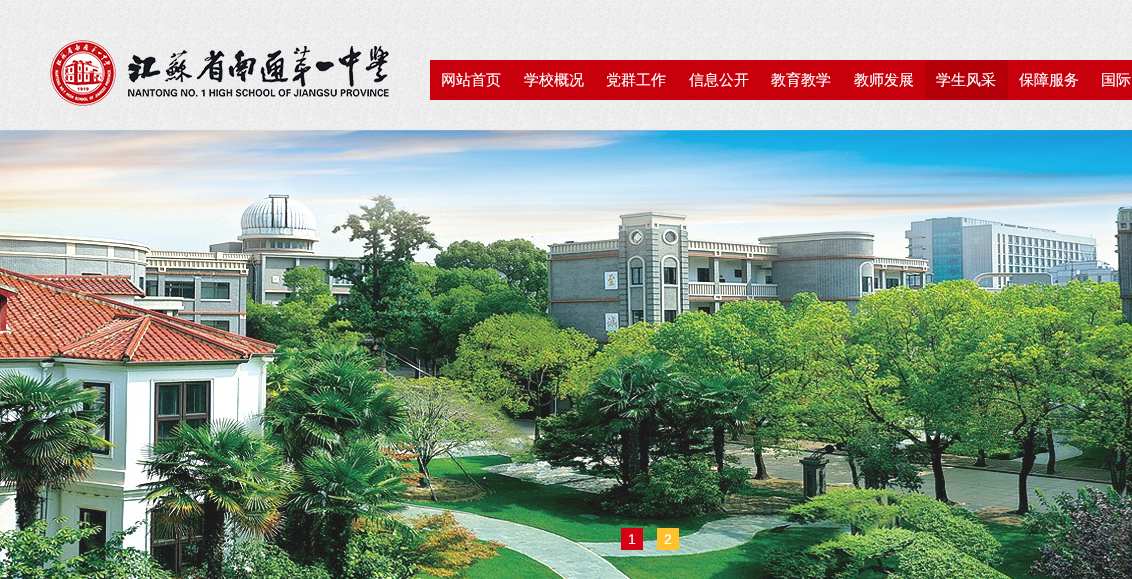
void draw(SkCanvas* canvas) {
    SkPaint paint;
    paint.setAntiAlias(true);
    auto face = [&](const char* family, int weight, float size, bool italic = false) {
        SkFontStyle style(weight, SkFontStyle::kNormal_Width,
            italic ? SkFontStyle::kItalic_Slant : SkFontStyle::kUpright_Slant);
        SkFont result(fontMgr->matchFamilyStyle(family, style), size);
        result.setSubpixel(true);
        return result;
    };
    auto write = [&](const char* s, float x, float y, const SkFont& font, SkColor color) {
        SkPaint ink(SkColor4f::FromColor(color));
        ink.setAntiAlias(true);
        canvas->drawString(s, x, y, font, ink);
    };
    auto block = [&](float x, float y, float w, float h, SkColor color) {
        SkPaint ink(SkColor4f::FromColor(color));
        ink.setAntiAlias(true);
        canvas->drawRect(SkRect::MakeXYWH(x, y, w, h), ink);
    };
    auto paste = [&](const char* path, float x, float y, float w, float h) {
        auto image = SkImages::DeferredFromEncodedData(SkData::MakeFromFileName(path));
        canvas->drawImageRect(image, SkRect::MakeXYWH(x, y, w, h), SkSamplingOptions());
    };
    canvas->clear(SK_ColorWHITE);
    paste("pic1.png", 0, 0, 1132, 130);
    paste("pic2.png", 50, 40, 339, 66);
    block(430, 60, 702, 40, SkColorSetRGB(199, 0, 11));
    auto kFont1 = face("WenQuanYi Zen Hei", 500, 15);
    write("网站首页", 441, 85, kFont1, SK_ColorWHITE);
    write("学校概况", 524, 85, kFont1, SK_ColorWHITE);
    write("党群工作", 606, 85, kFont1, SK_ColorWHITE);
    write("信息公开", 689, 85, kFont1, SK_ColorWHITE);
    write("教育教学", 771, 85, kFont1, SK_ColorWHITE);
    write("教师发展", 854, 85, kFont1, SK_ColorWHITE);
    block(925, 60, 83, 40, SkColorSetRGB(181, 0, 10));
    write("学生风采", 936, 85, kFont1, SK_ColorWHITE);
    write("保障服务", 1019, 85, kFont1, SK_ColorWHITE);
    write("国际", 1101, 85, kFont1, SK_ColorWHITE);
    paste("pic3.png", 0, 130, 1132, 449);
    block(621, 528, 22, 22, SkColorSetRGB(212, 2, 19));
    auto kFont2 = face("Liberation Sans", 400, 14);
    write("1", 628, 544, kFont2, SK_ColorWHITE);
    block(657, 528, 22, 22, SkColorSetRGB(255, 193, 44));
    write("2", 664, 544, kFont2, SK_ColorWHITE);
}
